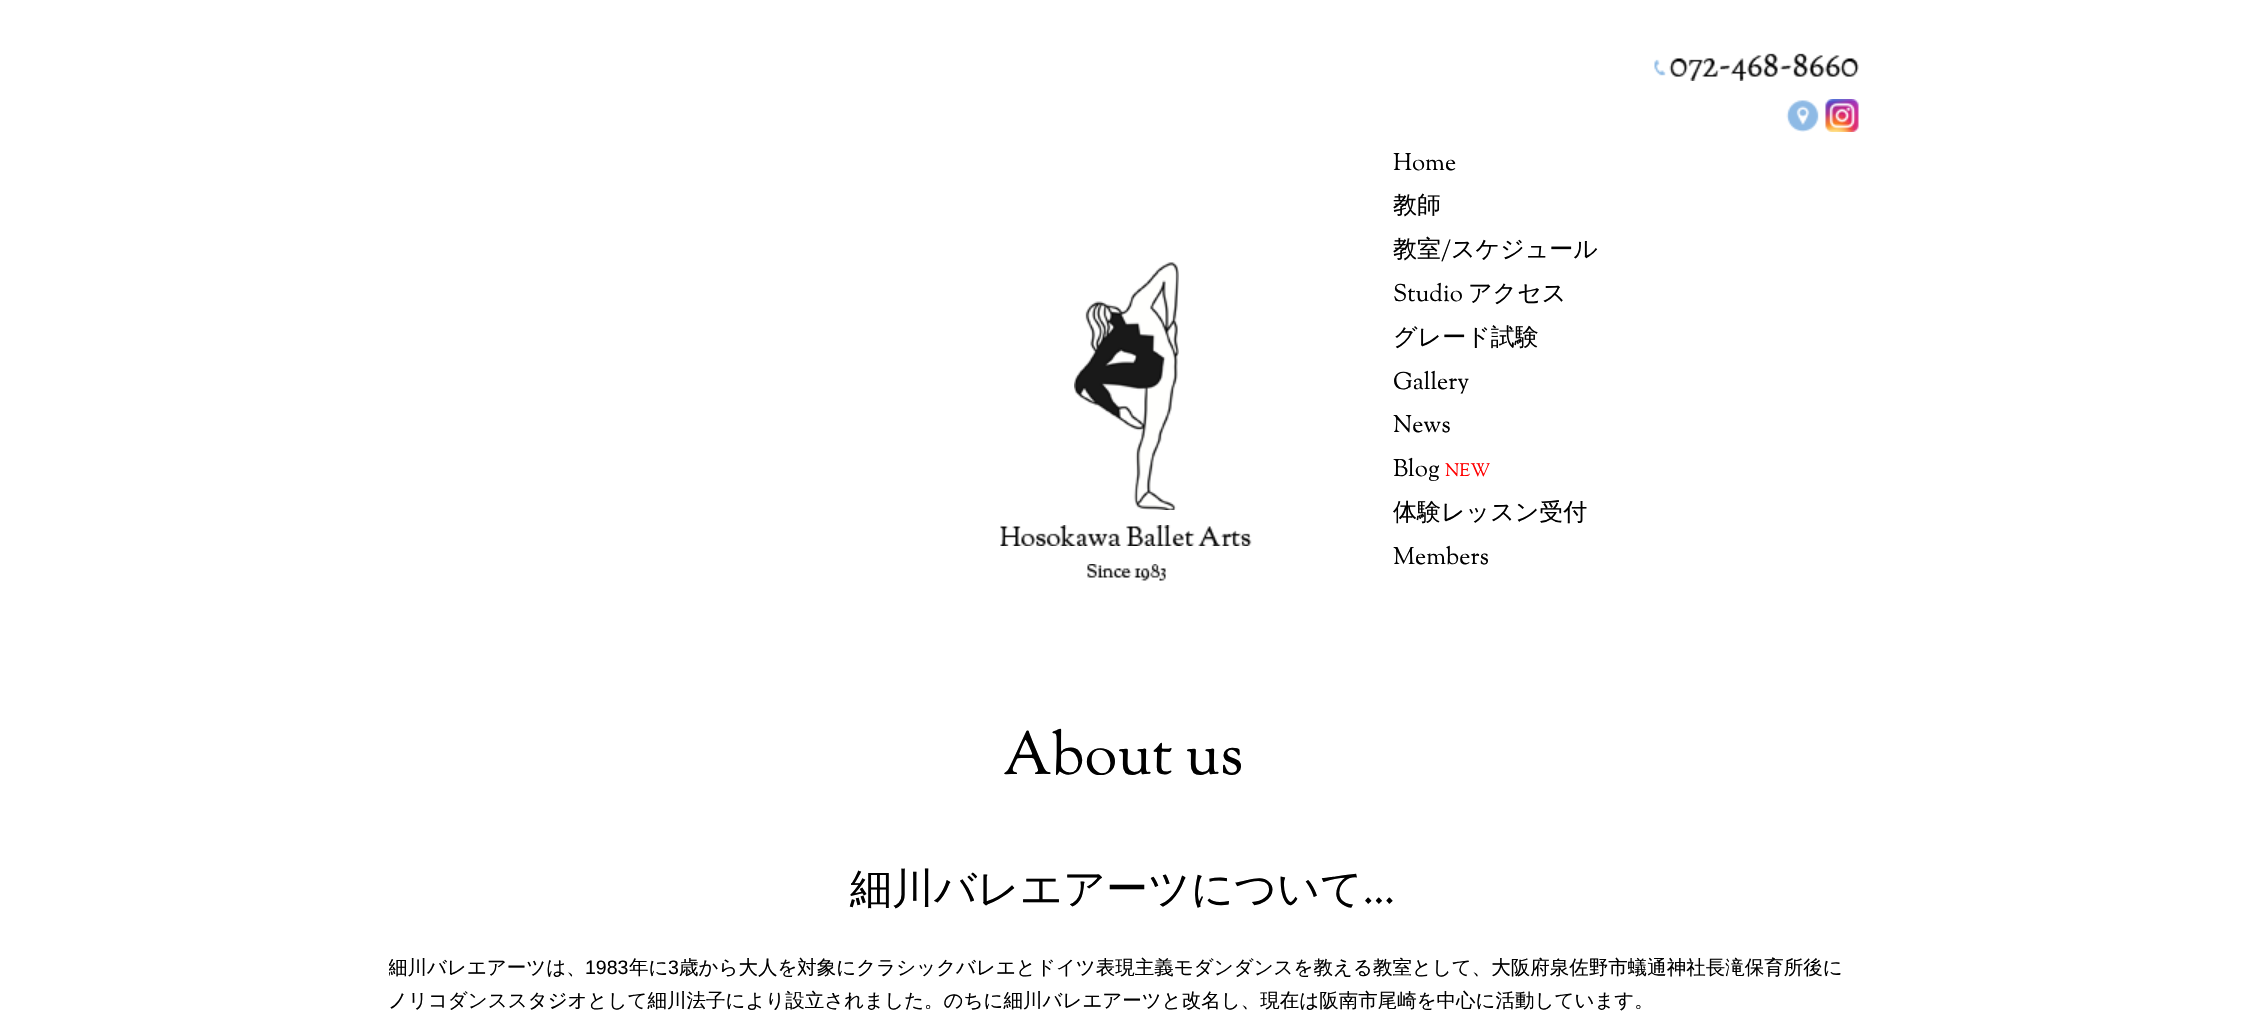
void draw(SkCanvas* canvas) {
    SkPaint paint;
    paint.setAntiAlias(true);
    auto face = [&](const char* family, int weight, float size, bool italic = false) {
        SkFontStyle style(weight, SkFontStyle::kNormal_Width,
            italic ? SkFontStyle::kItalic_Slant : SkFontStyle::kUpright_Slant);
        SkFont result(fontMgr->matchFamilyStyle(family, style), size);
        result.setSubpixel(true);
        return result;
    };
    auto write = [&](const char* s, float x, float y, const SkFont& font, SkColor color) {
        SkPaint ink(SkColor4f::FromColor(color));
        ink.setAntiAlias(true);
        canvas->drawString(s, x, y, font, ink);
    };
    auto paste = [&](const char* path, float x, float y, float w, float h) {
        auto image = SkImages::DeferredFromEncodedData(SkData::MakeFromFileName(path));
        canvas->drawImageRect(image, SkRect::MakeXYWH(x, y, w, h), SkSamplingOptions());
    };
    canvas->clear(SK_ColorWHITE);
    paste("pic1.png", 1654, 53, 205, 28);
    paste("pic2.png", 1786, 100, 33, 32);
    paste("pic3.png", 1825, 99, 34, 33);
    paste("pic4.png", 1074, 262, 105, 248);
    paste("pic5.png", 1000, 525, 252, 21);
    paste("pic6.png", 1087, 564, 79, 17);
    auto kFont1 = face("Sorts Mill Goudy", 400, 24);
    write("Home", 1393, 170, kFont1, SK_ColorBLACK);
    auto kFont2 = face("WenQuanYi Zen Hei", 500, 24);
    write("教師", 1393, 213, kFont2, SK_ColorBLACK);
    write("教室", 1393, 257, kFont2, SK_ColorBLACK);
    write("/", 1441, 257, kFont1, SK_ColorBLACK);
    write("スケジュール", 1451, 257, kFont2, SK_ColorBLACK);
    write("Studio", 1393, 301, kFont1, SK_ColorBLACK);
    write("アクセス", 1468, 301, kFont2, SK_ColorBLACK);
    write("グレード試験", 1393, 345, kFont2, SK_ColorBLACK);
    write("Gallery", 1393, 389, kFont1, SK_ColorBLACK);
    write("News", 1393, 432, kFont1, SK_ColorBLACK);
    write("Blog", 1393, 476, kFont1, SK_ColorBLACK);
    auto kFont3 = face("Sorts Mill Goudy", 400, 18);
    write("NEW", 1445, 476, kFont3, SkColorSetRGB(255, 0, 0));
    write("体験レッスン受付", 1393, 520, kFont2, SK_ColorBLACK);
    write("Members", 1393, 564, kFont1, SK_ColorBLACK);
    auto kFont4 = face("Sorts Mill Goudy", 400, 60);
    write("About us", 1003, 774, kFont4, SK_ColorBLACK);
    auto kFont5 = face("WenQuanYi Zen Hei", 500, 42);
    write("細川バレエアーツについて", 850, 903, kFont5, SK_ColorBLACK);
    auto kFont6 = face("Sorts Mill Goudy", 400, 42);
    write("…", 1363, 903, kFont6, SK_ColorBLACK);
    canvas->save();
    canvas->clipRect(SkRect::MakeXYWH(389, 719, 1470, 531));
    auto kFont7 = face("WenQuanYi Zen Hei", 500, 19.5f);
    write("細川バレエアーツは、", 388, 974, kFont7, SK_ColorBLACK);
    canvas->restore();
    auto kFont8 = face("Liberation Sans", 400, 19.5f);
    write("1983", 585, 974, kFont8, SK_ColorBLACK);
    write("年に", 629, 974, kFont7, SK_ColorBLACK);
    write("3", 668, 974, kFont8, SK_ColorBLACK);
    write("歳から大人を対象にクラシックバレエとドイツ表現主義モダンダンスを教える教室として、大阪府泉佐野市蟻通神社長滝保育所後に", 679, 974, kFont7, SK_ColorBLACK);
    write("ノリコダンススタジオとして細川法子により設立されました。のちに細川バレエアーツと改名し、現在は阪南市尾崎を中心に活動しています。", 388, 1007, kFont7, SK_ColorBLACK);
}
